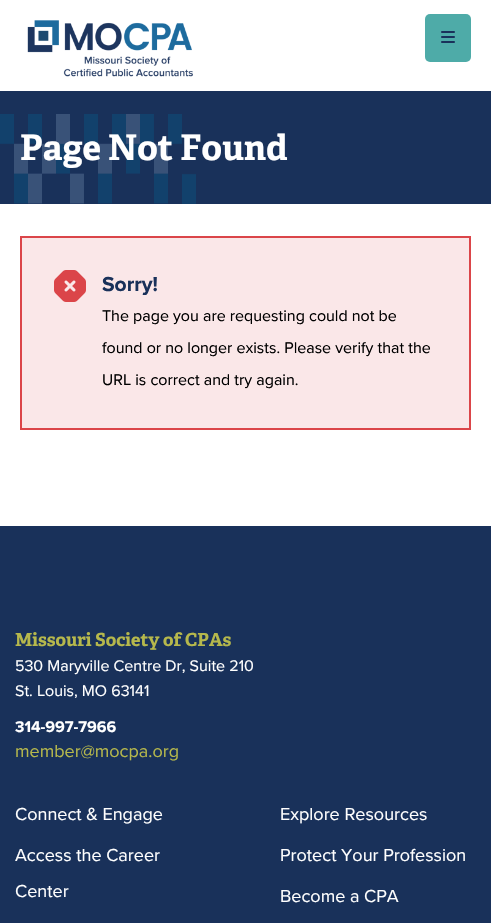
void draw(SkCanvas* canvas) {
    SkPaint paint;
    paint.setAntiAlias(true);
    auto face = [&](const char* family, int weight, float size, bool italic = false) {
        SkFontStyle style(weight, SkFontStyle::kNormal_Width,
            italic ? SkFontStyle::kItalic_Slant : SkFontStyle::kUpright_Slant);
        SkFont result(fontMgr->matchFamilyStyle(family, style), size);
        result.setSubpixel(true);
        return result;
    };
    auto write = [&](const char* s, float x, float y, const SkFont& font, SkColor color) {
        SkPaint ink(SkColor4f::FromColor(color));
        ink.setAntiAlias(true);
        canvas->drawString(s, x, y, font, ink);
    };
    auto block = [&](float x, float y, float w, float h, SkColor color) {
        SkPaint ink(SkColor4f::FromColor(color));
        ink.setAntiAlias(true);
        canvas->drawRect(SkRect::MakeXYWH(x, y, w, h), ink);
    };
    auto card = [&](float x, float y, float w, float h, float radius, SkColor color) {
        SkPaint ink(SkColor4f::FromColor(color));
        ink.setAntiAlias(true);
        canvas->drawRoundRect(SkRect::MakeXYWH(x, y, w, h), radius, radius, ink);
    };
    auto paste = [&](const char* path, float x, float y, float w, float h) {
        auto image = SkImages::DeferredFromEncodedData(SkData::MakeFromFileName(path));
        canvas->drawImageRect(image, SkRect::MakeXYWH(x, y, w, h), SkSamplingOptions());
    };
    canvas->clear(SK_ColorWHITE);
    paste("pic1.png", 27, 20, 166, 57);
    card(425, 14, 46, 48, 5, SkColorSetRGB(78, 171, 168));
    paste("pic2.png", 441, 31, 14, 12);
    block(0, 91, 491, 113, SkColorSetRGB(25, 49, 90));
    paste("pic3.png", 0, 114, 196, 90);
    auto kFont1 = face("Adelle", 700, 35.25f);
    write("Page Not Found", 20, 160, kFont1, SK_ColorWHITE);
    paint.setColor(SkColorSetRGB(250, 231, 232));
    canvas->drawRect(SkRect::MakeXYWH(21, 237, 449, 192), paint);
    paint.setStyle(SkPaint::kStroke_Style);
    paint.setStrokeWidth(2);
    paint.setColor(SkColorSetRGB(219, 69, 73));
    canvas->drawRect(SkRect::MakeXYWH(21, 237, 449, 192), paint);
    paste("pic4.png", 54, 270, 32, 32);
    auto kFont2 = face("Proxima Nova", 700, 21);
    write("Sorry!", 102, 291, kFont2, SkColorSetRGB(25, 49, 90));
    auto kFont3 = face("Proxima Nova", 400, 16);
    write("The page you are requesting could not be", 102, 321, kFont3, SK_ColorBLACK);
    write("found or no longer exists. Please verify that the", 102, 353, kFont3, SK_ColorBLACK);
    write("URL is correct and try again.", 102, 385, kFont3, SK_ColorBLACK);
    block(0, 526, 491, 397, SkColorSetRGB(25, 49, 90));
    auto kFont4 = face("Adelle", 700, 18);
    write("Missouri Society of CPAs", 15, 646, kFont4, SkColorSetRGB(182, 184, 76));
    write("530 Maryville Centre Dr, Suite 210", 15, 671, kFont3, SK_ColorWHITE);
    write("St. Louis, MO 63141", 15, 696, kFont3, SK_ColorWHITE);
    auto kFont5 = face("Proxima Nova", 700, 16);
    write("314-997-7966", 15, 732, kFont5, SK_ColorWHITE);
    auto kFont6 = face("Proxima Nova", 400, 18);
    write("member@mocpa.org", 15, 757, kFont6, SkColorSetRGB(182, 184, 76));
    write("Connect & Engage", 15, 820, kFont6, SK_ColorWHITE);
    write("Explore Resources", 280, 820, kFont6, SK_ColorWHITE);
    write("Access the Career", 15, 861, kFont6, SK_ColorWHITE);
    write("Center", 15, 897, kFont6, SK_ColorWHITE);
    write("Protect Your Profession", 280, 861, kFont6, SK_ColorWHITE);
    write("Become a CPA", 280, 902, kFont6, SK_ColorWHITE);
}
